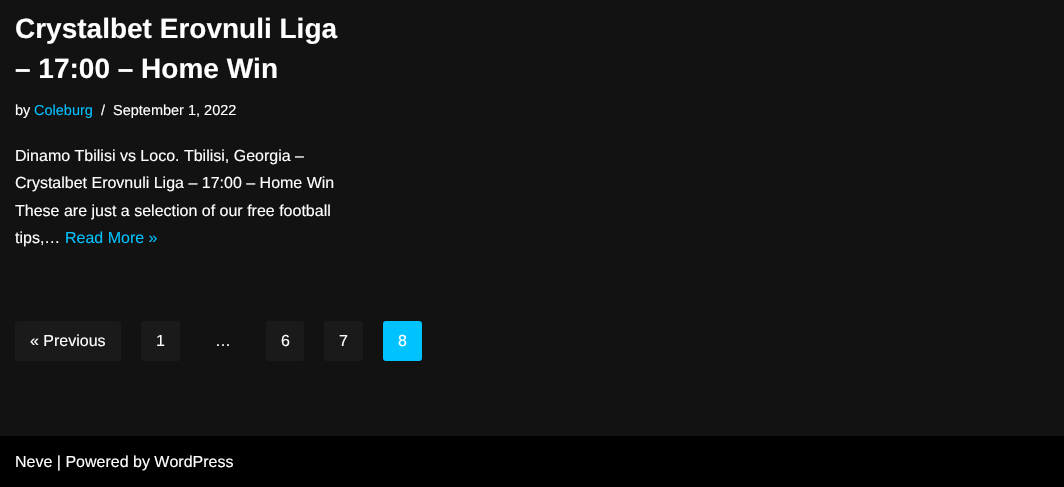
void draw(SkCanvas* canvas) {
    SkPaint paint;
    paint.setAntiAlias(true);
    auto face = [&](const char* family, int weight, float size, bool italic = false) {
        SkFontStyle style(weight, SkFontStyle::kNormal_Width,
            italic ? SkFontStyle::kItalic_Slant : SkFontStyle::kUpright_Slant);
        SkFont result(fontMgr->matchFamilyStyle(family, style), size);
        result.setSubpixel(true);
        return result;
    };
    auto write = [&](const char* s, float x, float y, const SkFont& font, SkColor color) {
        SkPaint ink(SkColor4f::FromColor(color));
        ink.setAntiAlias(true);
        canvas->drawString(s, x, y, font, ink);
    };
    auto block = [&](float x, float y, float w, float h, SkColor color) {
        SkPaint ink(SkColor4f::FromColor(color));
        ink.setAntiAlias(true);
        canvas->drawRect(SkRect::MakeXYWH(x, y, w, h), ink);
    };
    auto card = [&](float x, float y, float w, float h, float radius, SkColor color) {
        SkPaint ink(SkColor4f::FromColor(color));
        ink.setAntiAlias(true);
        canvas->drawRoundRect(SkRect::MakeXYWH(x, y, w, h), radius, radius, ink);
    };
    canvas->clear(SkColorSetRGB(18, 18, 18));
    auto kFont1 = face("Liberation Sans", 700, 28);
    write("Crystalbet Erovnuli Liga", 15, 38, kFont1, SK_ColorWHITE);
    write("– 17:00 – Home Win", 15, 78, kFont1, SK_ColorWHITE);
    auto kFont2 = face("Liberation Sans", 400, 14.5f);
    write("by", 15, 115, kFont2, SK_ColorWHITE);
    write("Coleburg", 34, 115, kFont2, SkColorSetRGB(0, 194, 255));
    write("/", 101, 115, kFont2, SK_ColorWHITE);
    write("September 1, 2022", 113, 115, kFont2, SK_ColorWHITE);
    auto kFont3 = face("Liberation Sans", 400, 16);
    write("Dinamo Tbilisi vs Loco. Tbilisi, Georgia –", 15, 161, kFont3, SK_ColorWHITE);
    write("Crystalbet Erovnuli Liga – 17:00 – Home Win", 15, 188, kFont3, SK_ColorWHITE);
    write("These are just a selection of our free football", 15, 216, kFont3, SK_ColorWHITE);
    write("tips,…", 15, 243, kFont3, SK_ColorWHITE);
    write("Read More »", 65, 243, kFont3, SkColorSetRGB(0, 194, 255));
    card(15, 321, 106, 40, 3, SkColorSetRGB(26, 26, 26));
    write("« Previous", 30, 346, kFont3, SK_ColorWHITE);
    card(141, 321, 39, 40, 3, SkColorSetRGB(26, 26, 26));
    write("1", 156, 346, kFont3, SK_ColorWHITE);
    write("…", 215, 346, kFont3, SK_ColorWHITE);
    card(266, 321, 38, 40, 3, SkColorSetRGB(26, 26, 26));
    write("6", 281, 346, kFont3, SK_ColorWHITE);
    card(324, 321, 39, 40, 3, SkColorSetRGB(26, 26, 26));
    write("7", 339, 346, kFont3, SK_ColorWHITE);
    card(383, 321, 39, 40, 3, SkColorSetRGB(0, 194, 255));
    write("8", 398, 346, kFont3, SK_ColorWHITE);
    block(0, 436, 1064, 51, SK_ColorBLACK);
    write("Neve | Powered by WordPress", 15, 467, kFont3, SK_ColorWHITE);
}
